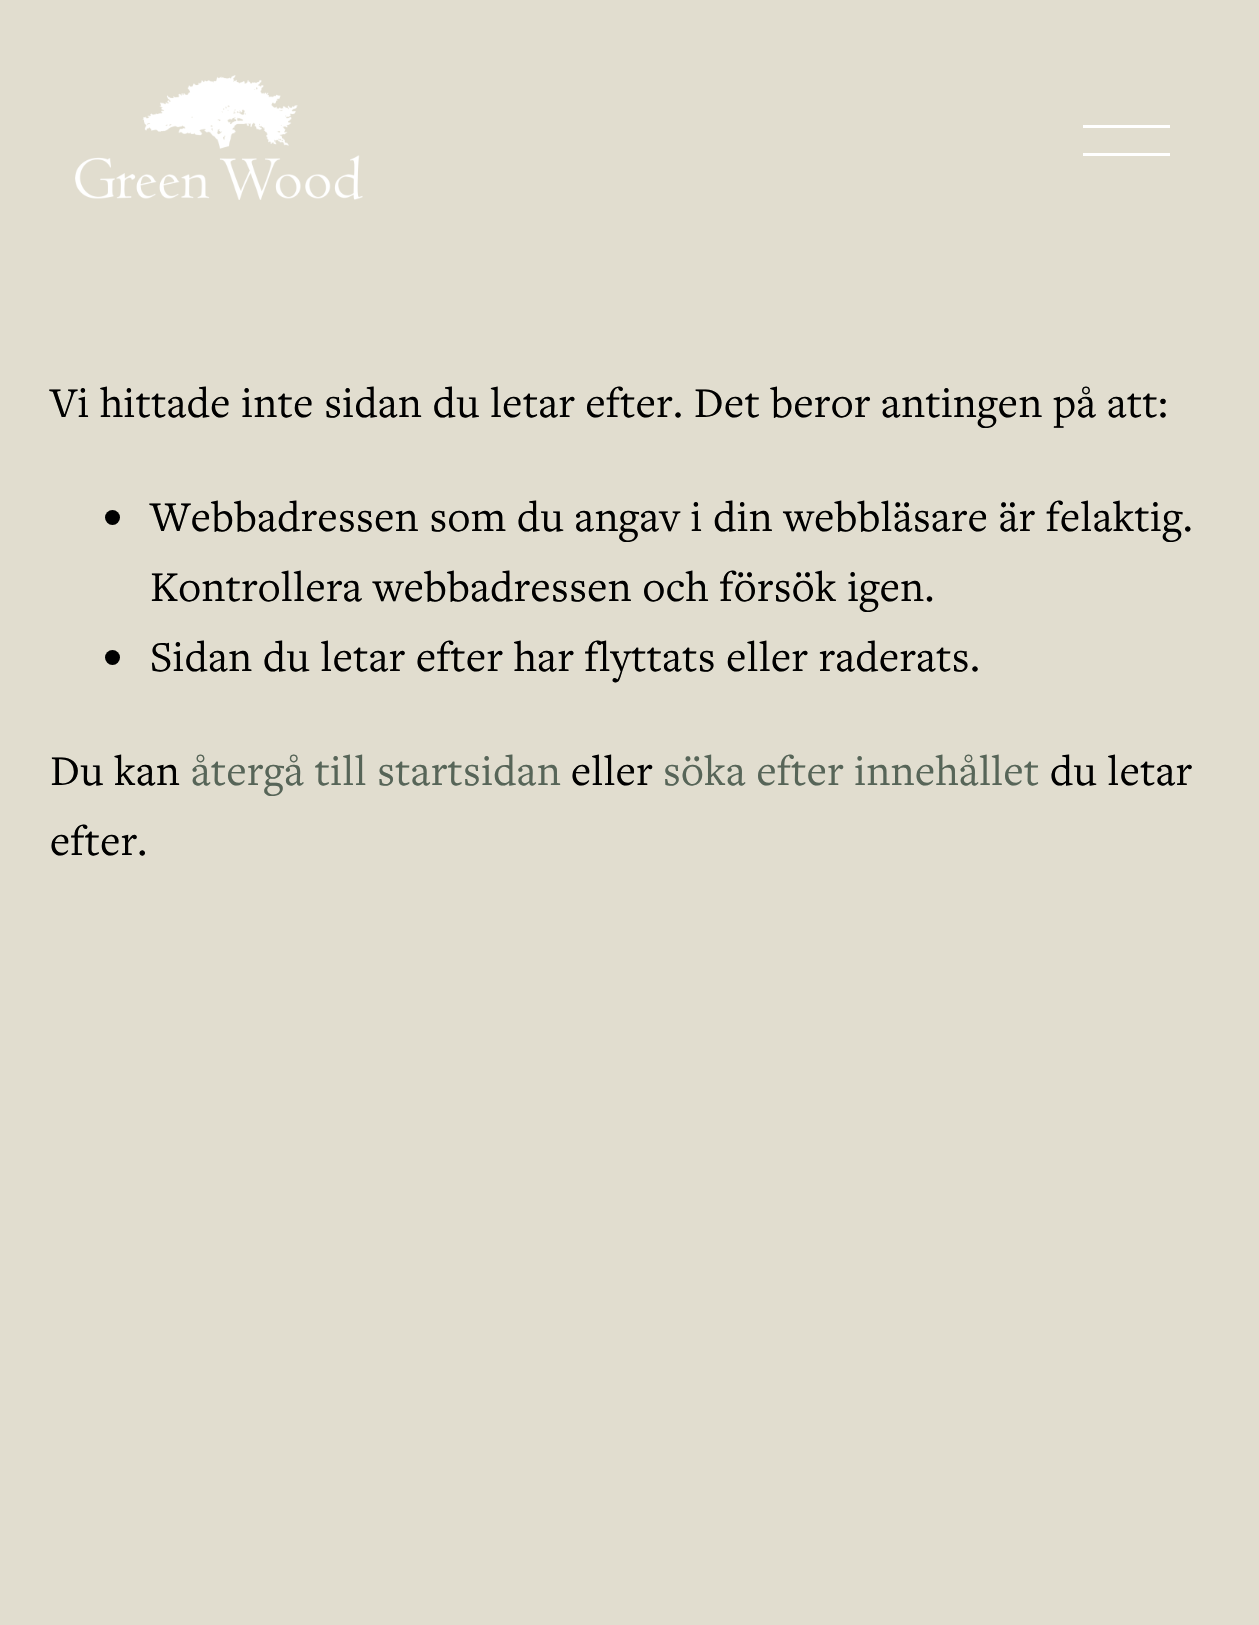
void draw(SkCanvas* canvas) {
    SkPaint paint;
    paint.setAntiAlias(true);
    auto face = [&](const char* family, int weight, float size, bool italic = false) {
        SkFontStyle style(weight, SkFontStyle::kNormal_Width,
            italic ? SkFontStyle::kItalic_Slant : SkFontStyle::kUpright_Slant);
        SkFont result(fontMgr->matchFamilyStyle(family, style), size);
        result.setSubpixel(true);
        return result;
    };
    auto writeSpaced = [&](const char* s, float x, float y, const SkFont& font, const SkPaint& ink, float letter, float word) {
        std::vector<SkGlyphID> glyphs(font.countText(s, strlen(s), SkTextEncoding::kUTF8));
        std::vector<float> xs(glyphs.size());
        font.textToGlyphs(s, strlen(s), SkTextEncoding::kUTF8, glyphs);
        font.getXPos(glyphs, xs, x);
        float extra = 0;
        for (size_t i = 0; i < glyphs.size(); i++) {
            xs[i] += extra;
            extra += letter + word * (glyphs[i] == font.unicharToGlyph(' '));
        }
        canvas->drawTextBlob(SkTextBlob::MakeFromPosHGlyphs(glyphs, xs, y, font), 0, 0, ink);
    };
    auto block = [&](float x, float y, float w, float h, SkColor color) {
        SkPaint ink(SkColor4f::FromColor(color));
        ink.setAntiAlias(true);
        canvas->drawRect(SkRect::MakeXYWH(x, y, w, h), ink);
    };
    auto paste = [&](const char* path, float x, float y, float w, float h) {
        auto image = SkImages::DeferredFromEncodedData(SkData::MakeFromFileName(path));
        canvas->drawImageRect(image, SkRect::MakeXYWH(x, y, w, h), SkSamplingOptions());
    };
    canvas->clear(SkColorSetRGB(225, 221, 207));
    paste("pic1.png", 75, 75, 288, 125);
    block(1083, 125, 87, 3, SK_ColorWHITE);
    block(1083, 153, 87, 3, SK_ColorWHITE);
    auto kFont1 = face("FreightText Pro", 400, 43.9f);
    paint.setColor(SK_ColorBLACK);
    writeSpaced("Vi hittade inte sidan du letar efter. Det beror antingen på att:", 50, 417, kFont1, paint, 0.45f, 0);
    canvas->drawCircle(112.5f, 517.5f, 7.5f, paint);
    writeSpaced("Webbadressen som du angav i din webbläsare är felaktig.", 150, 531, kFont1, paint, 0.45f, 0);
    writeSpaced("Kontrollera webbadressen och försök igen.", 150, 601, kFont1, paint, 0.45f, 0);
    canvas->drawCircle(112.5f, 657.5f, 7.5f, paint);
    writeSpaced("Sidan du letar efter har flyttats eller raderats.", 150, 671, kFont1, paint, 0.45f, 0);
    writeSpaced("Du kan", 50, 785, kFont1, paint, 0.45f, 0);
    paint.setColor(SkColorSetRGB(87, 101, 88));
    writeSpaced("återgå till startsidan", 191, 785, kFont1, paint, 0.45f, 0);
    paint.setColor(SK_ColorBLACK);
    writeSpaced("eller", 571, 785, kFont1, paint, 0.45f, 0);
    paint.setColor(SkColorSetRGB(87, 101, 88));
    writeSpaced("söka efter innehållet", 663, 785, kFont1, paint, 0.45f, 0);
    paint.setColor(SK_ColorBLACK);
    writeSpaced("du letar", 1050, 785, kFont1, paint, 0.45f, 0);
    writeSpaced("efter.", 50, 855, kFont1, paint, 0.45f, 0);
}
